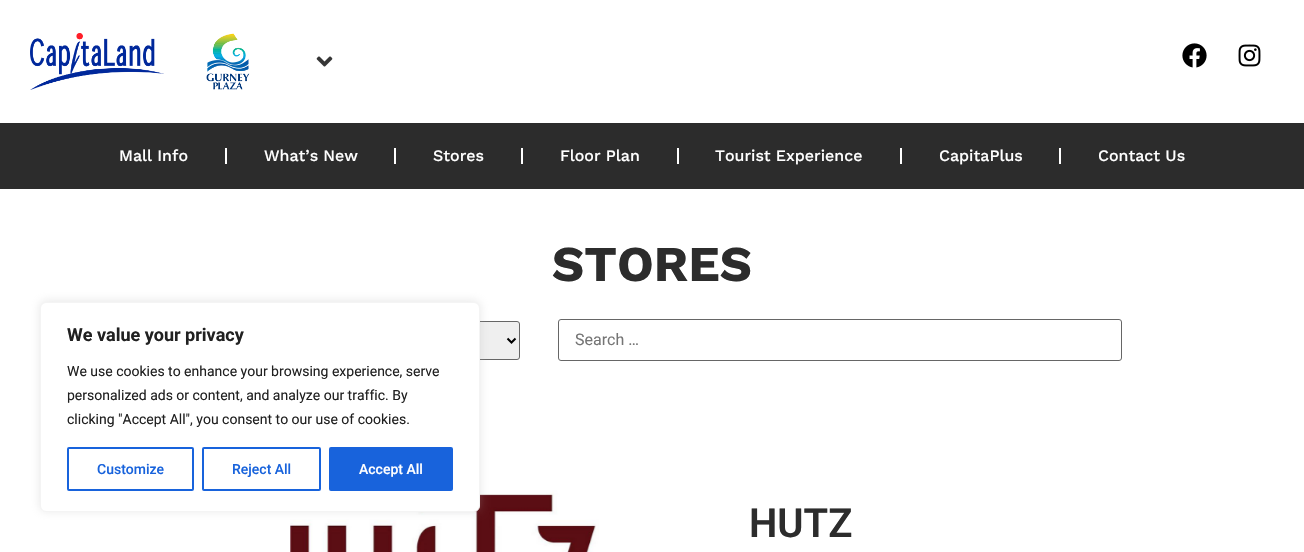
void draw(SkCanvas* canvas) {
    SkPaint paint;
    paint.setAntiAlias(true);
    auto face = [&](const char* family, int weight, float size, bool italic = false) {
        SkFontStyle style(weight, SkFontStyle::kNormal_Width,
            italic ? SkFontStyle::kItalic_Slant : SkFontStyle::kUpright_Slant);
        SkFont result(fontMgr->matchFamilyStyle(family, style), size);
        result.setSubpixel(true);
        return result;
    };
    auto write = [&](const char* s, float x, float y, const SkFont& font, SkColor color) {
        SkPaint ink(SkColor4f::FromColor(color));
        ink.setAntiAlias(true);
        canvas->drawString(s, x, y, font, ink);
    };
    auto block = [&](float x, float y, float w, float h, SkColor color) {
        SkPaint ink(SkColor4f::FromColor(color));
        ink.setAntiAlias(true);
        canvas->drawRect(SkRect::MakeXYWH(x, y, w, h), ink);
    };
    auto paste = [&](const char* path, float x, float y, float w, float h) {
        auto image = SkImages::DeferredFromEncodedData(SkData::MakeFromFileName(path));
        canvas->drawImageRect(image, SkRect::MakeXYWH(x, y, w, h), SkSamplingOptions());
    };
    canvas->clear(SK_ColorWHITE);
    paste("pic1.png", 30, 33, 134, 57);
    paste("pic2.png", 206, 33, 44, 57);
    paste("pic3.png", 316, 56, 17, 11);
    paste("pic4.png", 1182, 43, 25, 25);
    paste("pic5.png", 1238, 44, 23, 23);
    block(0, 123, 1304, 66, SkColorSetRGB(44, 44, 44));
    auto kFont1 = face("Work Sans", 500, 16);
    write("Mall Info", 119, 161, kFont1, SK_ColorWHITE);
    block(225, 148, 2, 16, SK_ColorWHITE);
    write("What’s New", 264, 161, kFont1, SK_ColorWHITE);
    block(394, 148, 2, 16, SK_ColorWHITE);
    write("Stores", 433, 161, kFont1, SK_ColorWHITE);
    block(521, 148, 2, 16, SK_ColorWHITE);
    write("Floor Plan", 560, 161, kFont1, SK_ColorWHITE);
    block(677, 148, 2, 16, SK_ColorWHITE);
    write("Tourist Experience", 715, 161, kFont1, SK_ColorWHITE);
    block(900, 148, 2, 16, SK_ColorWHITE);
    write("CapitaPlus", 939, 161, kFont1, SK_ColorWHITE);
    block(1059, 148, 2, 16, SK_ColorWHITE);
    write("Contact Us", 1098, 161, kFont1, SK_ColorWHITE);
    auto kFont2 = face("Work Sans", 700, 50);
    write("STORES", 552, 281, kFont2, SkColorSetRGB(44, 44, 44));
    paint.setColor(SkColorSetRGB(239, 239, 239));
    canvas->drawRoundRect(SkRect::MakeXYWH(182.5f, 321.5f, 337, 38), 2.5f, 2.5f, paint);
    paint.setStyle(SkPaint::kStroke_Style);
    paint.setStrokeWidth(1);
    paint.setColor(SkColorSetRGB(102, 102, 102));
    canvas->drawRoundRect(SkRect::MakeXYWH(182.5f, 321.5f, 337, 38), 2.5f, 2.5f, paint);
    paint.setStrokeWidth(2);
    paint.setColor(SK_ColorBLACK);
    canvas->drawPath(SkPathBuilder().moveTo(507.5f, 338.5f).lineTo(511.5f, 342.5f).lineTo(515.5f, 338.5f).detach(), paint);
    paint.setStrokeWidth(1);
    paint.setColor(SkColorSetRGB(102, 102, 102));
    canvas->drawRoundRect(SkRect::MakeXYWH(558.5f, 319.5f, 563, 41), 2.5f, 2.5f, paint);
    auto kFont3 = face("Roboto", 400, 16);
    write("Search …", 575, 345, kFont3, SkColorSetRGB(117, 117, 117));
    paste("pic6.png", 290, 490, 309, 62);
    auto kFont4 = face("Roboto", 600, 40);
    write("HUTZ", 749, 537, kFont4, SkColorSetRGB(44, 44, 44));
    paint.setStyle(SkPaint::kFill_Style);
    paint.setColor(SkColorSetARGB(77, 172, 171, 171));
    paint.setMaskFilter(SkMaskFilter::MakeBlur(kNormal_SkBlurStyle, 5));
    canvas->drawRoundRect(SkRect::MakeXYWH(40, 301, 440, 210), 6, 6, paint);
    paint.setMaskFilter(nullptr);
    paint.setColor(SK_ColorWHITE);
    canvas->drawRoundRect(SkRect::MakeXYWH(40.5f, 302.5f, 439, 209), 5.5f, 5.5f, paint);
    paint.setStyle(SkPaint::kStroke_Style);
    paint.setColor(SkColorSetRGB(244, 244, 244));
    canvas->drawRoundRect(SkRect::MakeXYWH(40.5f, 302.5f, 439, 209), 5.5f, 5.5f, paint);
    auto kFont5 = face("Roboto", 700, 18);
    write("We value your privacy", 67, 341, kFont5, SkColorSetRGB(33, 33, 33));
    auto kFont6 = face("Roboto", 400, 14);
    write("We use cookies to enhance your browsing experience, serve", 67, 376, kFont6, SkColorSetRGB(33, 33, 33));
    write("personalized ads or content, and analyze our traffic. By", 67, 400, kFont6, SkColorSetRGB(33, 33, 33));
    write("clicking \"Accept All\", you consent to our use of cookies.", 67, 424, kFont6, SkColorSetRGB(33, 33, 33));
    paint.setStrokeWidth(2);
    paint.setColor(SkColorSetRGB(24, 99, 220));
    canvas->drawRoundRect(SkRect::MakeXYWH(68, 448, 125, 42), 1, 1, paint);
    auto kFont7 = face("Roboto", 500, 14);
    write("Customize", 97, 474, kFont7, SkColorSetRGB(24, 99, 220));
    canvas->drawRoundRect(SkRect::MakeXYWH(203, 448, 117, 42), 1, 1, paint);
    write("Reject All", 232, 474, kFont7, SkColorSetRGB(24, 99, 220));
    paint.setStyle(SkPaint::kFill_Style);
    canvas->drawRoundRect(SkRect::MakeXYWH(330, 448, 122, 42), 1, 1, paint);
    paint.setStyle(SkPaint::kStroke_Style);
    canvas->drawRoundRect(SkRect::MakeXYWH(330, 448, 122, 42), 1, 1, paint);
    write("Accept All", 359, 474, kFont7, SK_ColorWHITE);
}
